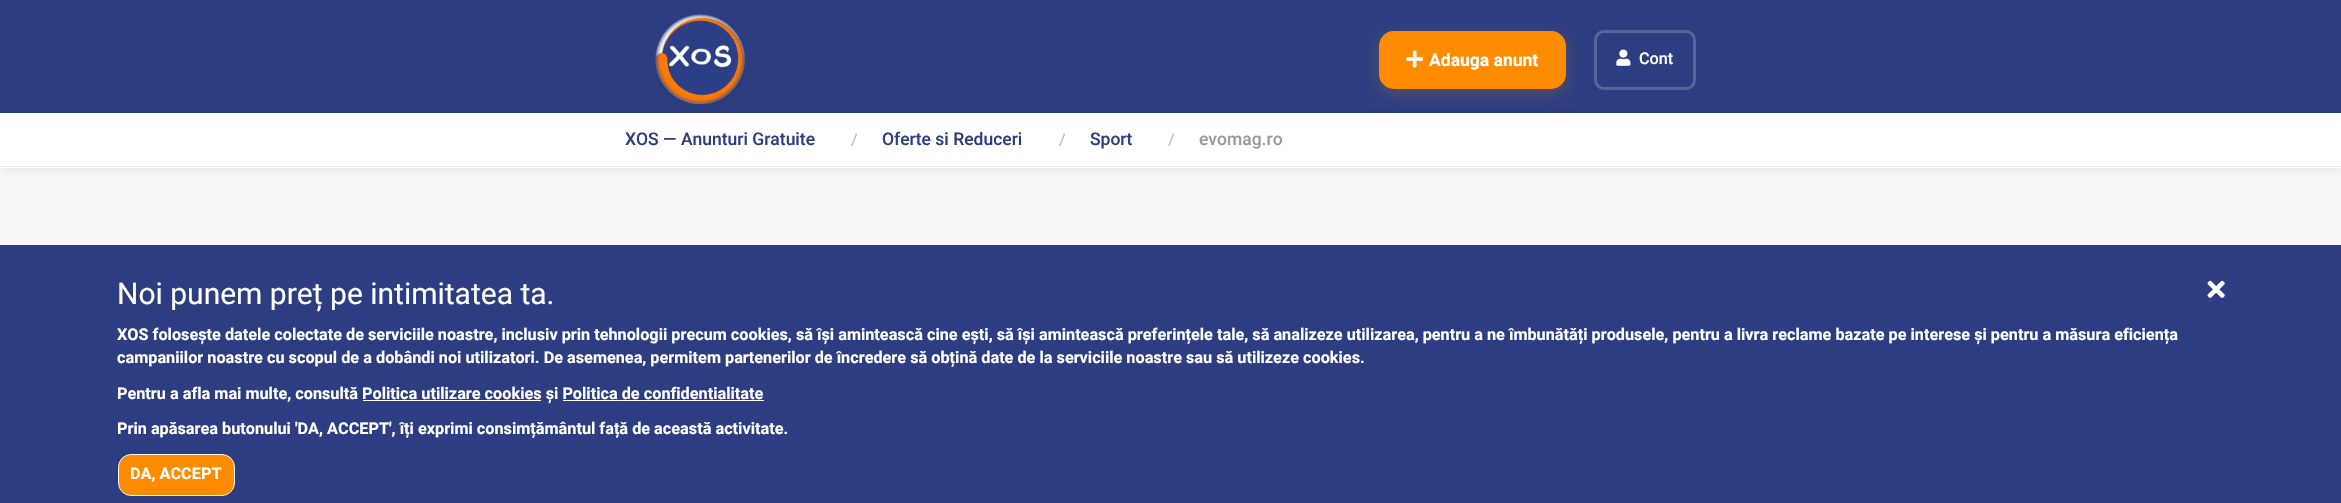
void draw(SkCanvas* canvas) {
    SkPaint paint;
    paint.setAntiAlias(true);
    auto face = [&](const char* family, int weight, float size, bool italic = false) {
        SkFontStyle style(weight, SkFontStyle::kNormal_Width,
            italic ? SkFontStyle::kItalic_Slant : SkFontStyle::kUpright_Slant);
        SkFont result(fontMgr->matchFamilyStyle(family, style), size);
        result.setSubpixel(true);
        return result;
    };
    auto write = [&](const char* s, float x, float y, const SkFont& font, SkColor color) {
        SkPaint ink(SkColor4f::FromColor(color));
        ink.setAntiAlias(true);
        canvas->drawString(s, x, y, font, ink);
    };
    auto block = [&](float x, float y, float w, float h, SkColor color) {
        SkPaint ink(SkColor4f::FromColor(color));
        ink.setAntiAlias(true);
        canvas->drawRect(SkRect::MakeXYWH(x, y, w, h), ink);
    };
    auto paste = [&](const char* path, float x, float y, float w, float h) {
        auto image = SkImages::DeferredFromEncodedData(SkData::MakeFromFileName(path));
        canvas->drawImageRect(image, SkRect::MakeXYWH(x, y, w, h), SkSamplingOptions());
    };
    canvas->clear(SkColorSetRGB(248, 248, 248));
    block(0, 0, 2341, 113, SkColorSetRGB(44, 62, 129));
    paint.setColor(SkColorSetARGB(20, 0, 0, 0));
    paint.setMaskFilter(SkMaskFilter::MakeBlur(kNormal_SkBlurStyle, 5));
    canvas->drawRect(SkRect::MakeXYWH(0, 115, 2341, 55), paint);
    paint.setMaskFilter(nullptr);
    paste("pic1.png", 654, 14, 92, 94);
    block(0, 113, 2341, 55, SK_ColorWHITE);
    paint.setColor(SkColorSetARGB(51, 255, 140, 0));
    paint.setMaskFilter(SkMaskFilter::MakeBlur(kNormal_SkBlurStyle, 7.5f));
    canvas->drawRoundRect(SkRect::MakeXYWH(1379, 36, 187, 58), 15, 15, paint);
    paint.setMaskFilter(nullptr);
    paint.setColor(SkColorSetRGB(255, 140, 0));
    canvas->drawRoundRect(SkRect::MakeXYWH(1380.5f, 32.5f, 184, 55), 13.5f, 13.5f, paint);
    paint.setStyle(SkPaint::kStroke_Style);
    paint.setStrokeWidth(3);
    canvas->drawRoundRect(SkRect::MakeXYWH(1380.5f, 32.5f, 184, 55), 13.5f, 13.5f, paint);
    paste("pic2.png", 1406, 50, 18, 18);
    auto kFont1 = face("Roboto", 700, 17.5f);
    write("Adauga anunt", 1429, 66, kFont1, SK_ColorWHITE);
    paint.setColor(SkColorSetRGB(86, 101, 154));
    canvas->drawRoundRect(SkRect::MakeXYWH(1595.5f, 31.5f, 99, 57), 8.5f, 8.5f, paint);
    paste("pic3.png", 1616, 49, 15, 17);
    auto kFont2 = face("Roboto", 500, 16.25f);
    write("Cont", 1639, 64, kFont2, SK_ColorWHITE);
    block(0, 166, 2341, 1, SkColorSetRGB(230, 230, 230));
    auto kFont3 = face("Roboto", 500, 17.5f);
    write("XOS — Anunturi Gratuite", 625, 145, kFont3, SkColorSetRGB(44, 62, 129));
    auto kFont4 = face("Roboto", 400, 16);
    write("/", 851, 145, kFont4, SkColorSetRGB(184, 184, 184));
    write("Oferte si Reduceri", 882, 145, kFont3, SkColorSetRGB(44, 62, 129));
    write("/", 1059, 145, kFont4, SkColorSetRGB(184, 184, 184));
    write("Sport", 1090, 145, kFont3, SkColorSetRGB(44, 62, 129));
    write("/", 1168, 145, kFont4, SkColorSetRGB(184, 184, 184));
    write("evomag.ro", 1199, 145, kFont3, SkColorSetRGB(153, 153, 153));
    block(0, 245, 2341, 258, SkColorSetRGB(44, 62, 129));
    auto kFont5 = face("Roboto", 400, 30);
    write("Noi punem preț pe intimitatea ta.", 117, 304, kFont5, SK_ColorWHITE);
    paste("pic4.png", 2207, 280, 18, 18);
    auto kFont6 = face("Roboto", 700, 16.25f);
    write("XOS folosește datele colectate de serviciile noastre, inclusiv prin tehnologii precum cookies, să își amintească cine ești, să își amintească preferințele tale, să analizeze utilizarea, pentru a ne îmbunătăți produsele, pentru a livra reclame bazate pe interese și pentru a măsura eficiența", 117, 340, kFont6, SK_ColorWHITE);
    write("campaniilor noastre cu scopul de a dobândi noi utilizatori. De asemenea, permitem partenerilor de încredere să obțină date de la serviciile noastre sau să utilizeze cookies.", 117, 363, kFont6, SK_ColorWHITE);
    write("Pentru a afla mai multe, consultă Politica utilizare cookies și Politica de confidentialitate", 117, 399, kFont6, SK_ColorWHITE);
    block(363, 400, 178, 1, SK_ColorWHITE);
    block(563, 400, 201, 1, SK_ColorWHITE);
    write("Prin apăsarea butonului 'DA, ACCEPT', îți exprimi consimțământul față de această activitate.", 117, 434, kFont6, SK_ColorWHITE);
    paint.setStyle(SkPaint::kFill_Style);
    paint.setColor(SkColorSetARGB(64, 0, 0, 0));
    paint.setMaskFilter(SkMaskFilter::MakeBlur(kNormal_SkBlurStyle, 1));
    canvas->drawRoundRect(SkRect::MakeXYWH(118, 454, 117, 42), 13, 13, paint);
    paint.setMaskFilter(nullptr);
    paint.setColor(SkColorSetRGB(255, 140, 0));
    canvas->drawRoundRect(SkRect::MakeXYWH(118.5f, 454.5f, 116, 41), 12.5f, 12.5f, paint);
    paint.setStyle(SkPaint::kStroke_Style);
    paint.setStrokeWidth(1);
    paint.setColor(SkColorSetRGB(248, 248, 248));
    canvas->drawRoundRect(SkRect::MakeXYWH(118.5f, 454.5f, 116, 41), 12.5f, 12.5f, paint);
    write("DA, ACCEPT", 130, 479, kFont6, SK_ColorWHITE);
}
